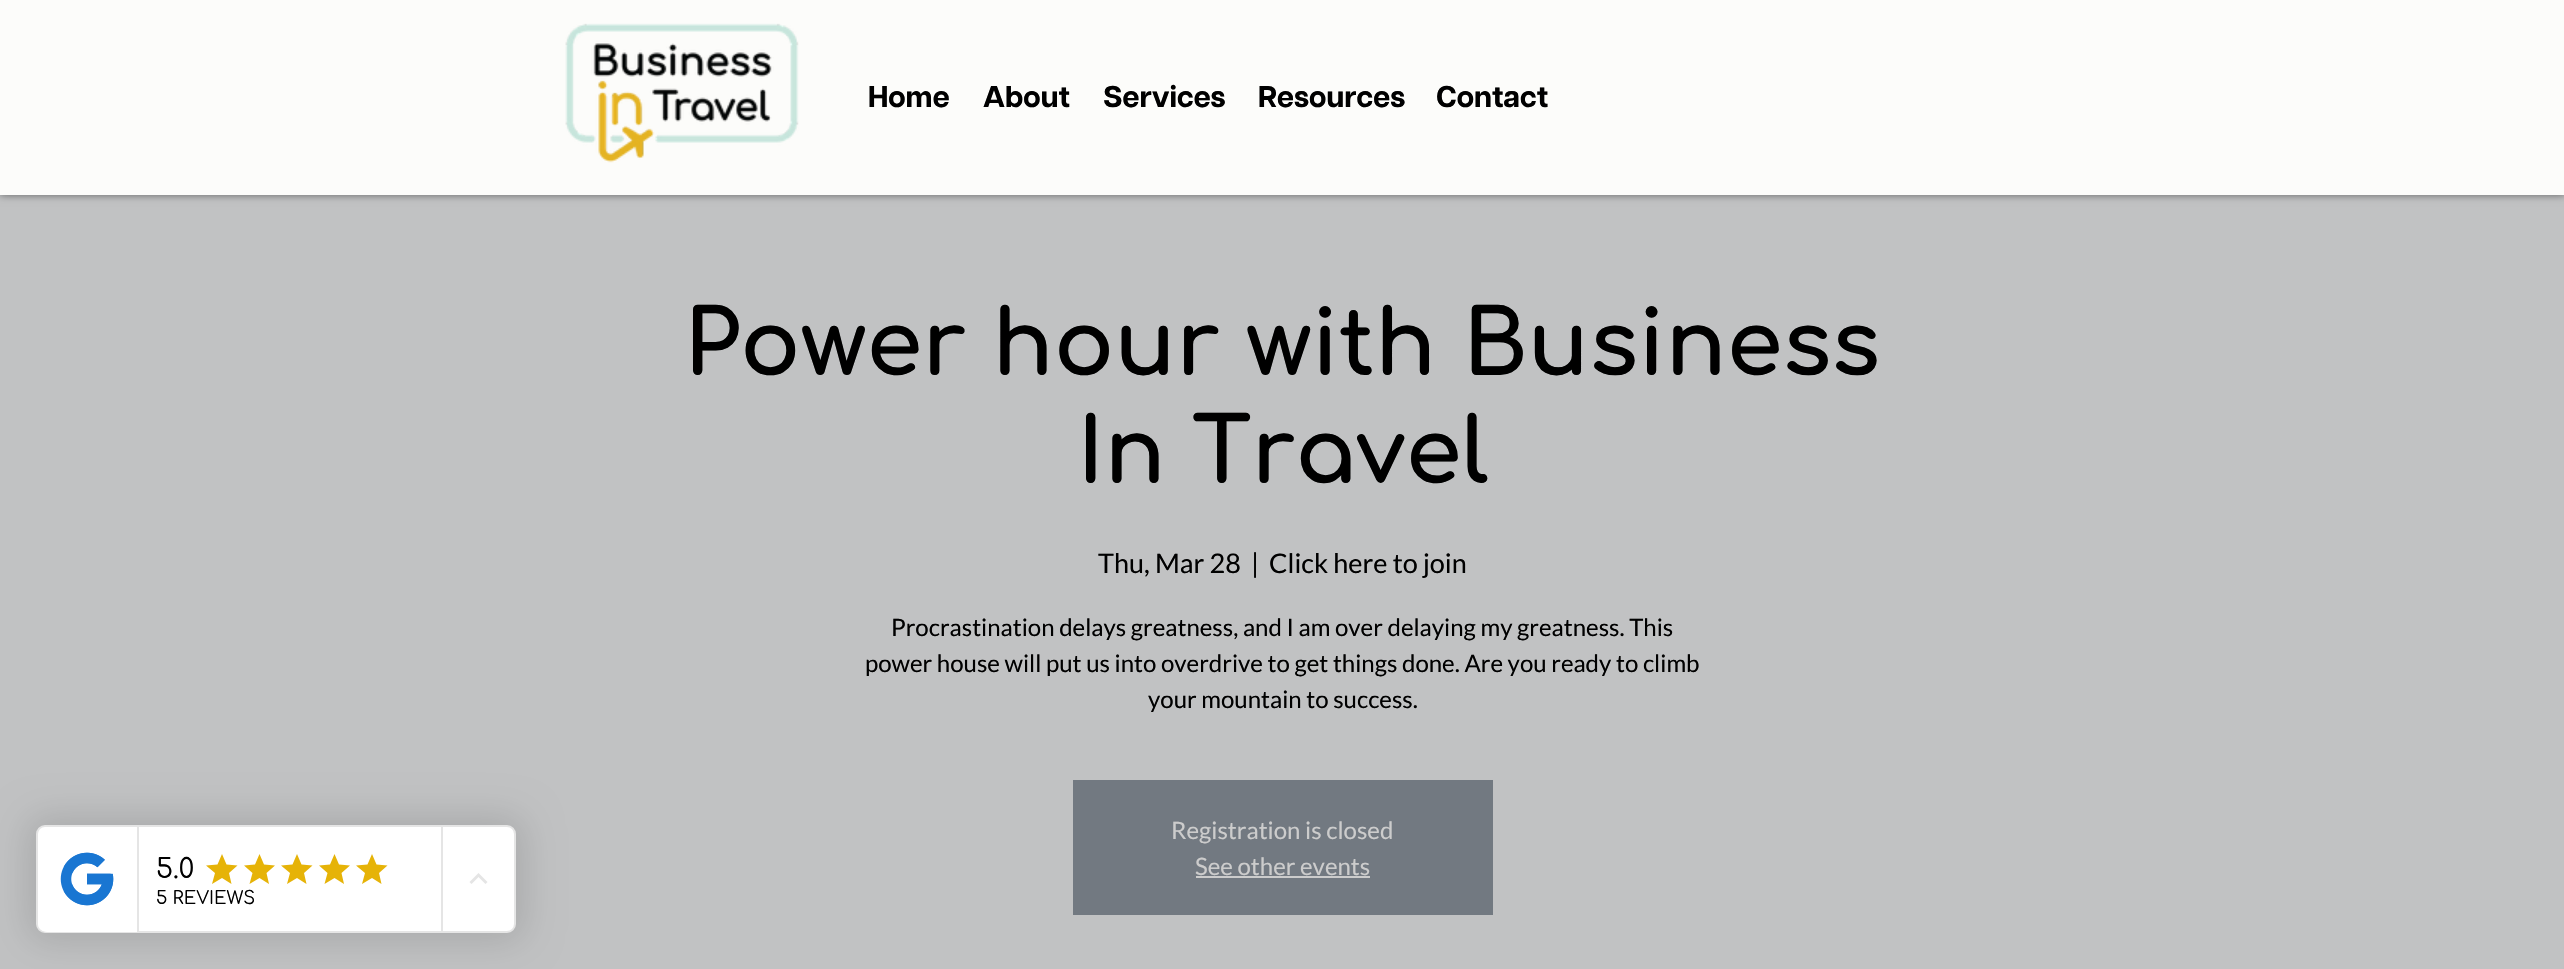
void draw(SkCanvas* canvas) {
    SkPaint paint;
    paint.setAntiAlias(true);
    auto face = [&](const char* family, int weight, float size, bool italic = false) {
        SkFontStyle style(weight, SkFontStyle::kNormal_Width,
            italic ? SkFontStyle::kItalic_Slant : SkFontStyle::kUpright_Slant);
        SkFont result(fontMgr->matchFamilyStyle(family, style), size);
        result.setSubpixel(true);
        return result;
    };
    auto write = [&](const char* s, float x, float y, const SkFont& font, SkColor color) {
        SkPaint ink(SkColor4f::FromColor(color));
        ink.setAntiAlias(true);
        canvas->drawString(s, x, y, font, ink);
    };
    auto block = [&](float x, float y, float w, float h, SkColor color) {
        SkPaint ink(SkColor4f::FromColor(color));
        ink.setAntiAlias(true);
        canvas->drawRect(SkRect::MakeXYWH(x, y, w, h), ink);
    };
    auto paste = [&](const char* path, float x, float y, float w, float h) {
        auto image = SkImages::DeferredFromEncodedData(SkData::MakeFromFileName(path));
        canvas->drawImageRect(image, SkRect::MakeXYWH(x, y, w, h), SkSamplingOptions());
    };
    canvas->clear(SkColorSetRGB(193, 194, 195));
    paint.setColor(SkColorSetARGB(31, 0, 0, 0));
    paint.setMaskFilter(SkMaskFilter::MakeBlur(kNormal_SkBlurStyle, 18));
    canvas->drawRoundRect(SkRect::MakeXYWH(27, 816, 498, 126), 18, 18, paint);
    paint.setMaskFilter(nullptr);
    paint.setColor(SK_ColorWHITE);
    canvas->drawRoundRect(SkRect::MakeXYWH(37, 826, 478, 106), 8, 8, paint);
    paint.setStyle(SkPaint::kStroke_Style);
    paint.setStrokeWidth(2);
    paint.setColor(SkColorSetRGB(229, 229, 229));
    canvas->drawRoundRect(SkRect::MakeXYWH(37, 826, 478, 106), 8, 8, paint);
    paint.setStyle(SkPaint::kFill_Style);
    paint.setColor(SK_ColorWHITE);
    canvas->drawPath(SkPathBuilder().moveTo(47, 827).lineTo(138, 827).lineTo(138, 932).lineTo(47, 932).cubicTo(42, 932, 38, 928, 38, 923).lineTo(38, 836).cubicTo(38, 831, 42, 827, 47, 827).close().detach(), paint);
    block(137, 827, 2, 105, SkColorSetRGB(229, 229, 229));
    paste("pic1.png", 60, 852, 54, 54);
    block(441, 827, 2, 105, SkColorSetRGB(229, 229, 229));
    auto kFont1 = face("Comfortaa", 400, 27);
    write("5.0", 156, 878, kFont1, SK_ColorBLACK);
    paint.setColor(SkColorSetRGB(230, 179, 7));
    canvas->drawPath(SkPathBuilder().moveTo(222, 878).lineTo(231.5f, 884).lineTo(229, 873).lineTo(237.5f, 865.5f).lineTo(226.5f, 864.5f).lineTo(222, 854).lineTo(217.5f, 864.5f).lineTo(206, 865.5f).lineTo(215, 873).lineTo(212, 884).close().detach(), paint);
    canvas->drawPath(SkPathBuilder().moveTo(259.5f, 878).lineTo(269, 884).lineTo(266.5f, 873).lineTo(275, 865.5f).lineTo(264, 864.5f).lineTo(259.5f, 854).lineTo(255, 864.5f).lineTo(244, 865.5f).lineTo(252.5f, 873).lineTo(249.5f, 884).close().detach(), paint);
    canvas->drawPath(SkPathBuilder().moveTo(297, 878).lineTo(306.5f, 884).lineTo(304, 873).lineTo(312.5f, 865.5f).lineTo(301.5f, 864.5f).lineTo(297, 854).lineTo(292.5f, 864.5f).lineTo(281, 865.5f).lineTo(290, 873).lineTo(287, 884).close().detach(), paint);
    canvas->drawPath(SkPathBuilder().moveTo(334.5f, 878).lineTo(344, 884).lineTo(341.5f, 873).lineTo(350, 865.5f).lineTo(339, 864.5f).lineTo(334.5f, 854).lineTo(330, 864.5f).lineTo(319, 865.5f).lineTo(327.5f, 873).lineTo(324.5f, 884).close().detach(), paint);
    canvas->drawPath(SkPathBuilder().moveTo(372, 878).lineTo(381.5f, 884).lineTo(379, 873).lineTo(387.5f, 865.5f).lineTo(376.5f, 864.5f).lineTo(372, 854).lineTo(367.5f, 864.5f).lineTo(356, 865.5f).lineTo(365, 873).lineTo(362, 884).close().detach(), paint);
    auto kFont2 = face("Comfortaa", 400, 18);
    write("5 REVIEWS", 156, 904, kFont2, SK_ColorBLACK);
    paint.setColor(SkColorSetRGB(229, 229, 229));
    canvas->drawPath(SkPathBuilder().moveTo(471.5f, 884).lineTo(478.5f, 877).lineTo(485.5f, 884).lineTo(487.5f, 882).lineTo(478.5f, 873).lineTo(469.5f, 882).close().detach(), paint);
    paint.setColor(SkColorSetARGB(128, 0, 0, 0));
    paint.setMaskFilter(SkMaskFilter::MakeBlur(kNormal_SkBlurStyle, 4));
    canvas->drawRect(SkRect::MakeXYWH(0, 0, 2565, 195), paint);
    paint.setMaskFilter(nullptr);
    block(0, 0, 2564, 195, SkColorSetRGB(252, 252, 250));
    paste("pic2.png", 565, 23, 234, 140);
    auto kFont3 = face("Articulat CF", 700, 30);
    write("Home", 868, 107, kFont3, SK_ColorBLACK);
    write("About", 983, 107, kFont3, SK_ColorBLACK);
    write("Services", 1103, 107, kFont3, SK_ColorBLACK);
    write("Resources", 1258, 107, kFont3, SK_ColorBLACK);
    write("Contact", 1436, 107, kFont3, SK_ColorBLACK);
    auto kFont4 = face("Comfortaa", 700, 90);
    write("Power hour with Business", 684, 375, kFont4, SK_ColorBLACK);
    write("In Travel", 1077, 483, kFont4, SK_ColorBLACK);
    auto kFont5 = face("Lato", 400, 27);
    write("Thu, Mar 28", 1098, 573, kFont5, SK_ColorBLACK);
    write("|", 1251, 573, kFont5, SK_ColorBLACK);
    write("Click here to join", 1269, 573, kFont5, SK_ColorBLACK);
    auto kFont6 = face("Lato", 400, 24);
    write("Procrastination delays greatness, and I am over delaying my greatness. This", 891, 636, kFont6, SK_ColorBLACK);
    write("power house will put us into overdrive to get things done. Are you ready to climb", 865, 672, kFont6, SK_ColorBLACK);
    write("your mountain to success.", 1148, 708, kFont6, SK_ColorBLACK);
    block(1073, 780, 420, 135, SkColorSetRGB(114, 121, 129));
    write("Registration is closed", 1171, 839, kFont6, SkColorSetRGB(204, 204, 204));
    write("See other events", 1195, 875, kFont6, SkColorSetRGB(204, 204, 204));
    block(1196, 876, 174, 2, SkColorSetRGB(204, 204, 204));
}
